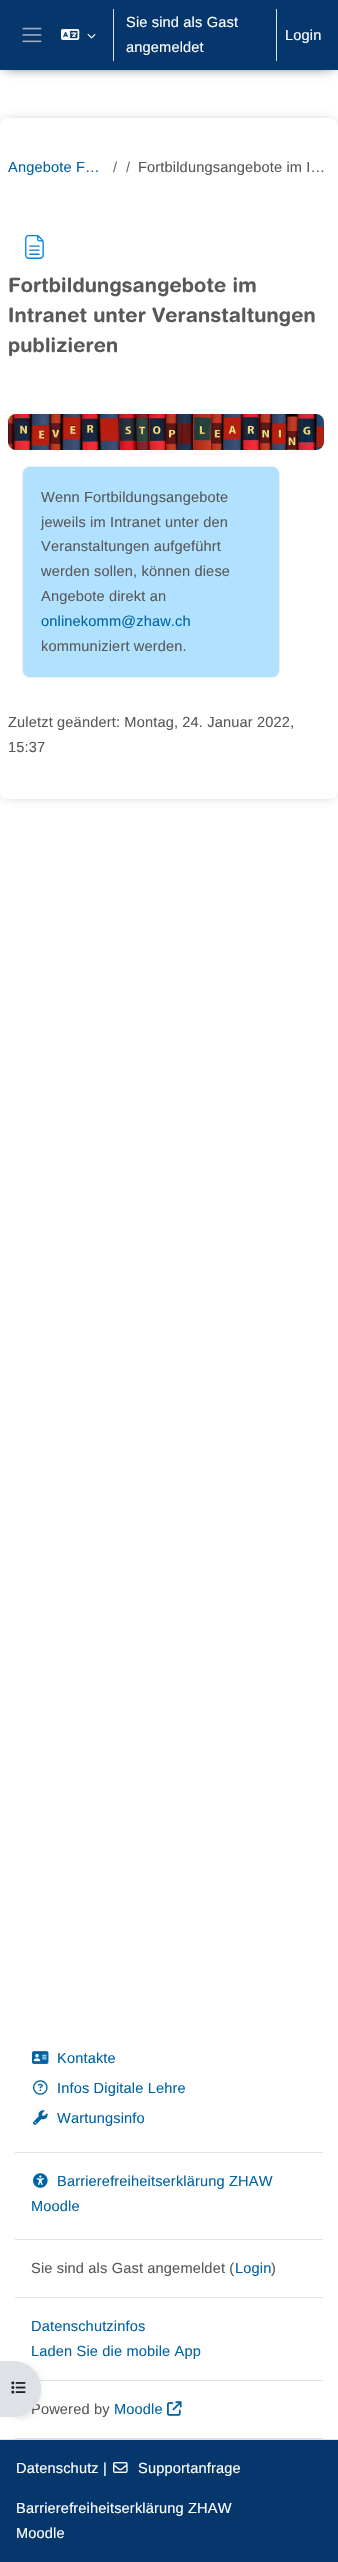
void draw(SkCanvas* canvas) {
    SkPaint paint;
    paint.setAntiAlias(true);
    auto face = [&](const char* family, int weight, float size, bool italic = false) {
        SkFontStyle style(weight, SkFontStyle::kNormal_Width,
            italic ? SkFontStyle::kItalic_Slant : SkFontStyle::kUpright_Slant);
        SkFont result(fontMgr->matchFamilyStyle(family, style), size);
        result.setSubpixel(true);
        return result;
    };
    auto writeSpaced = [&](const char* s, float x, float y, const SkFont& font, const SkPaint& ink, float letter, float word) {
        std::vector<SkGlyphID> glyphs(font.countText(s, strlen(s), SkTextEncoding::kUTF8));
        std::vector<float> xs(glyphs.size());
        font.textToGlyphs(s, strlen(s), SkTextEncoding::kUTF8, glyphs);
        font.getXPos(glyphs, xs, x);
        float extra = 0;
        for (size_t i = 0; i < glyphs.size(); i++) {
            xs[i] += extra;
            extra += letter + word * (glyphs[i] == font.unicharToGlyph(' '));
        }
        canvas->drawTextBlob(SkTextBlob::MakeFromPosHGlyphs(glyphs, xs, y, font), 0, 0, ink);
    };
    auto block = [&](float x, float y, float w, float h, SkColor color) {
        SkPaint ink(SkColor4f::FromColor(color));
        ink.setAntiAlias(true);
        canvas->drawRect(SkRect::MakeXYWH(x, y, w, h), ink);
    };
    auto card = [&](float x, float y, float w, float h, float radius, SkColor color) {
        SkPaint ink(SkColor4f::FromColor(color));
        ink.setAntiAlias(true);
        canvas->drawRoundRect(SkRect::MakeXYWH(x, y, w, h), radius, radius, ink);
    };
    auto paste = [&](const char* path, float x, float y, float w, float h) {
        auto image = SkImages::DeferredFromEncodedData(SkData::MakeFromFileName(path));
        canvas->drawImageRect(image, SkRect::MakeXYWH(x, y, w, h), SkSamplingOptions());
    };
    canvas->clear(SK_ColorWHITE);
    paint.setColor(SK_ColorBLACK);
    paint.setMaskFilter(SkMaskFilter::MakeBlur(kNormal_SkBlurStyle, 6.5f));
    canvas->drawRect(SkRect::MakeXYWH(5, 5, 328, 60), paint);
    paint.setMaskFilter(nullptr);
    block(0, 0, 338, 70, SkColorSetRGB(5, 54, 108));
    paste("pic1.png", 22, 27, 20, 16);
    paste("pic2.png", 61, 29, 19, 11);
    paste("pic3.png", 87, 34, 9, 5);
    block(113, 9, 1, 52, SkColorSetRGB(222, 226, 230));
    auto kFont1 = face("Liberation Sans", 400, 14.6f);
    paint.setColor(SK_ColorWHITE);
    writeSpaced("Sie sind als Gast", 126, 27, kFont1, paint, 0.15f, 0);
    block(276, 9, 1, 52, SkColorSetRGB(222, 226, 230));
    writeSpaced("Login", 285, 40, kFont1, paint, 0.15f, 0);
    writeSpaced("angemeldet", 126, 52, kFont1, paint, 0.15f, 0);
    paint.setColor(SkColorSetARGB(184, 132, 124, 124));
    paint.setMaskFilter(SkMaskFilter::MakeBlur(kNormal_SkBlurStyle, 6.5f));
    canvas->drawRoundRect(SkRect::MakeXYWH(5, 123, 328, 671), 3, 3, paint);
    paint.setMaskFilter(nullptr);
    card(0, 118, 338, 681, 8, SK_ColorWHITE);
    paint.setColor(SkColorSetRGB(0, 100, 166));
    writeSpaced("Angebote F…", 8, 172, kFont1, paint, 0.15f, 0);
    paint.setColor(SkColorSetRGB(106, 115, 123));
    writeSpaced("/", 113, 172, kFont1, paint, 0.15f, 0);
    writeSpaced("/", 126, 172, kFont1, paint, 0.15f, 0);
    paint.setColor(SkColorSetRGB(89, 89, 89));
    writeSpaced("Fortbildungsangebote im I…", 138, 172, kFont1, paint, 0.15f, 0);
    paste("pic4.png", 25, 235, 19, 24);
    auto kFont2 = face("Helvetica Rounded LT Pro", 700, 19.9f);
    writeSpaced("Fortbildungsangebote im", 8, 292, kFont2, paint, 0.15f, 0);
    writeSpaced("Intranet unter Veranstaltungen", 8, 322, kFont2, paint, 0.15f, 0);
    writeSpaced("publizieren", 8, 352, kFont2, paint, 0.15f, 0);
    paste("pic5.png", 8, 414, 316, 36);
    paint.setColor(SkColorSetRGB(176, 226, 255));
    canvas->drawRoundRect(SkRect::MakeXYWH(22.5f, 466.5f, 257, 211), 7.5f, 7.5f, paint);
    paint.setStyle(SkPaint::kStroke_Style);
    paint.setStrokeWidth(1);
    paint.setColor(SkColorSetRGB(238, 238, 238));
    canvas->drawRoundRect(SkRect::MakeXYWH(22.5f, 466.5f, 257, 211), 7.5f, 7.5f, paint);
    paint.setStyle(SkPaint::kFill_Style);
    paint.setColor(SkColorSetRGB(89, 89, 89));
    writeSpaced("Wenn Fortbildungsangebote", 41, 502, kFont1, paint, 0.15f, 0);
    writeSpaced("jeweils im Intranet unter den", 41, 527, kFont1, paint, 0.15f, 0);
    writeSpaced("Veranstaltungen aufgeführt", 41, 551, kFont1, paint, 0.15f, 0);
    writeSpaced("werden sollen, können diese", 41, 576, kFont1, paint, 0.15f, 0);
    writeSpaced("Angebote direkt an", 41, 601, kFont1, paint, 0.15f, 0);
    paint.setColor(SkColorSetRGB(0, 100, 166));
    writeSpaced("onlinekomm@zhaw.ch", 41, 626, kFont1, paint, 0.15f, 0);
    paint.setColor(SkColorSetRGB(89, 89, 89));
    writeSpaced("kommuniziert werden.", 41, 651, kFont1, paint, 0.15f, 0);
    writeSpaced("Zuletzt geändert: Montag, 24. Januar 2022,", 8, 727, kFont1, paint, 0.15f, 0);
    writeSpaced("15:37", 8, 752, kFont1, paint, 0.15f, 0);
    block(39, 2380, 284, 1, SkColorSetRGB(222, 226, 230));
    paint.setColor(SkColorSetARGB(18, 0, 0, 0));
    paint.setMaskFilter(SkMaskFilter::MakeBlur(kNormal_SkBlurStyle, 2));
    canvas->drawRoundRect(SkRect::MakeXYWH(0, 2363, 41, 56), 28, 28, paint);
    paint.setMaskFilter(nullptr);
    paint.setColor(SkColorSetRGB(89, 89, 89));
    writeSpaced("Powered by", 31, 2414, kFont1, paint, 0.15f, 0);
    paint.setColor(SkColorSetRGB(222, 226, 230));
    canvas->drawPath(SkPathBuilder().moveTo(0, 2361).lineTo(13, 2361).cubicTo(28.5f, 2361, 41, 2373.5f, 41, 2389).cubicTo(41, 2404.5f, 28.5f, 2417, 13, 2417).lineTo(0, 2417).close().detach(), paint);
    paste("pic6.png", 11, 2381, 15, 13);
    block(15, 2152, 308, 1, SkColorSetRGB(222, 226, 230));
    paste("pic7.png", 32, 2051, 17, 13);
    paint.setColor(SkColorSetRGB(0, 100, 166));
    writeSpaced("Kontakte", 57, 2063, kFont1, paint, 0.15f, 0);
    paste("pic8.png", 33, 2080, 15, 15);
    writeSpaced("Infos Digitale Lehre", 57, 2093, kFont1, paint, 0.15f, 0);
    paste("pic9.png", 33, 2110, 15, 15);
    writeSpaced("Wartungsinfo", 57, 2123, kFont1, paint, 0.15f, 0);
    block(15, 2239, 308, 1, SkColorSetRGB(222, 226, 230));
    paste("pic10.png", 33, 2173, 15, 15);
    writeSpaced("Barrierefreiheitserklärung ZHAW", 57, 2186, kFont1, paint, 0.15f, 0);
    writeSpaced("Moodle", 31, 2211, kFont1, paint, 0.15f, 0);
    block(15, 2297, 308, 1, SkColorSetRGB(222, 226, 230));
    paint.setColor(SkColorSetRGB(89, 89, 89));
    writeSpaced("Sie sind als Gast angemeldet (", 31, 2273, kFont1, paint, 0.15f, 0);
    paint.setColor(SkColorSetRGB(0, 100, 166));
    writeSpaced("Login", 235, 2273, kFont1, paint, 0.15f, 0);
    paint.setColor(SkColorSetRGB(89, 89, 89));
    writeSpaced(")", 271, 2273, kFont1, paint, 0.15f, 0);
    paint.setColor(SkColorSetRGB(0, 100, 166));
    writeSpaced("Datenschutzinfos", 31, 2331, kFont1, paint, 0.15f, 0);
    writeSpaced("Laden Sie die mobile App", 31, 2356, kFont1, paint, 0.15f, 0);
    block(15, 2438, 308, 1, SkColorSetRGB(222, 226, 230));
    writeSpaced("Moodle", 114, 2414, kFont1, paint, 0.15f, 0);
    paste("pic11.png", 167, 2401, 15, 15);
    block(0, 2440, 338, 122, SkColorSetRGB(5, 54, 108));
    block(0, 2439, 338, 1, SkColorSetRGB(222, 226, 230));
    paint.setColor(SK_ColorWHITE);
    writeSpaced("Datenschutz |", 16, 2473, kFont1, paint, 0.15f, 0);
    paste("pic12.png", 113, 2462, 15, 11);
    writeSpaced("Supportanfrage", 138, 2473, kFont1, paint, 0.15f, 0);
    writeSpaced("Barrierefreiheitserklärung ZHAW", 16, 2513, kFont1, paint, 0.15f, 0);
    writeSpaced("Moodle", 16, 2538, kFont1, paint, 0.15f, 0);
}
